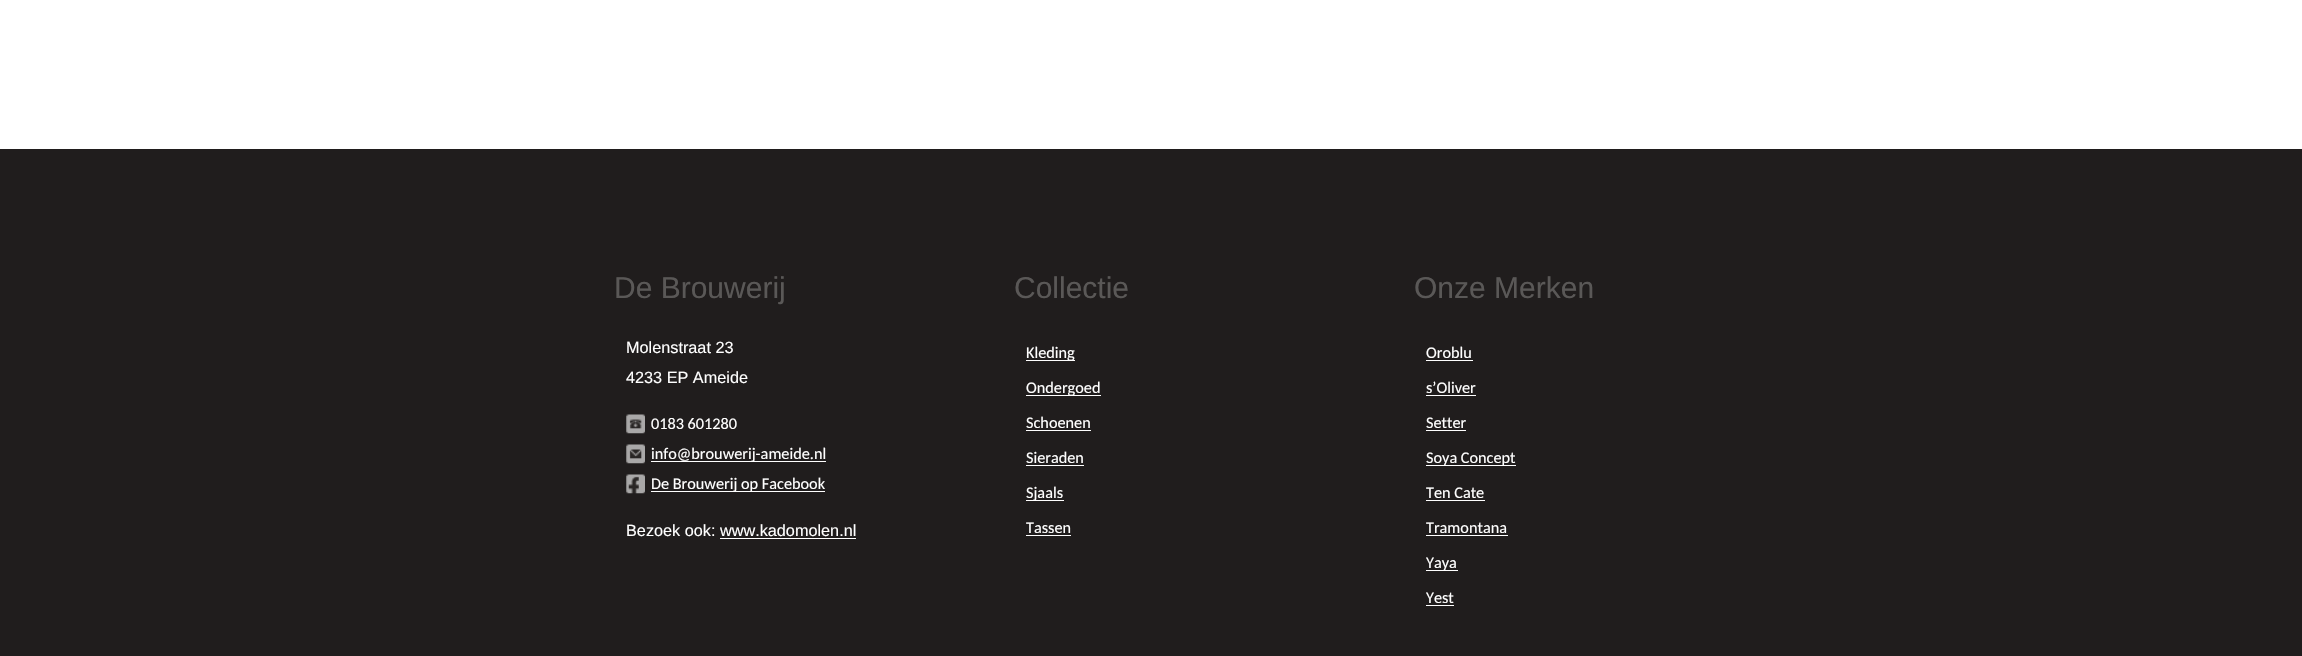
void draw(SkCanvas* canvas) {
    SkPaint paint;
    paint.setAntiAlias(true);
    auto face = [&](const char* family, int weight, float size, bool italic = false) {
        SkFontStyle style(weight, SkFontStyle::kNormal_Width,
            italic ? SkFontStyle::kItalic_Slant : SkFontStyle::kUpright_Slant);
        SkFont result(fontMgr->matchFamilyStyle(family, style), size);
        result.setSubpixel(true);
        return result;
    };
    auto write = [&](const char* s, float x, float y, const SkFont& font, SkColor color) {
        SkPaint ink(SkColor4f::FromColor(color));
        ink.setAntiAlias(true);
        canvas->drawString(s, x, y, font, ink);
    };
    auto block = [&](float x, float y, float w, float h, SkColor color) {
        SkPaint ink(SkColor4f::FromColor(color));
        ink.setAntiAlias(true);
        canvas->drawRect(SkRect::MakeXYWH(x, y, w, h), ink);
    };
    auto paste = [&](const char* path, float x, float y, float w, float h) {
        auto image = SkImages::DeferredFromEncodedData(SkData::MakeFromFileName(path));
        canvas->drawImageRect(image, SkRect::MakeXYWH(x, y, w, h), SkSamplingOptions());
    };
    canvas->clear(SK_ColorWHITE);
    block(0, 149, 2302, 507, SkColorSetRGB(32, 29, 29));
    auto kFont1 = face("Liberation Sans", 400, 30);
    write("De Brouwerij", 614, 298, kFont1, SkColorSetRGB(90, 88, 87));
    auto kFont2 = face("Liberation Sans", 400, 16.25f);
    write("Molenstraat 23", 626, 353, kFont2, SK_ColorWHITE);
    write("4233 EP Ameide", 626, 383, kFont2, SK_ColorWHITE);
    paste("pic1.png", 626, 414, 19, 20);
    auto kFont3 = face("Carlito", 400, 16.25f);
    write("0183 601280", 651, 429, kFont3, SK_ColorWHITE);
    paste("pic2.png", 626, 444, 19, 20);
    block(651, 461, 175, 1, SK_ColorWHITE);
    write("info@brouwerij-ameide.nl", 651, 459, kFont3, SK_ColorWHITE);
    paste("pic3.png", 626, 474, 19, 20);
    block(651, 491, 174, 1, SK_ColorWHITE);
    write("De Brouwerij op Facebook", 651, 489, kFont3, SK_ColorWHITE);
    write("Bezoek ook: www.kadomolen.nl", 626, 536, kFont2, SK_ColorWHITE);
    block(720, 538, 136, 1, SK_ColorWHITE);
    write("Collectie", 1014, 298, kFont1, SkColorSetRGB(90, 88, 87));
    block(1026, 360, 49, 1, SK_ColorWHITE);
    write("Kleding", 1026, 358, kFont3, SK_ColorWHITE);
    block(1026, 395, 75, 1, SK_ColorWHITE);
    write("Ondergoed", 1026, 393, kFont3, SK_ColorWHITE);
    write("Schoenen", 1026, 428, kFont3, SK_ColorWHITE);
    block(1026, 430, 65, 1, SK_ColorWHITE);
    write("Sieraden", 1026, 463, kFont3, SK_ColorWHITE);
    block(1026, 465, 58, 1, SK_ColorWHITE);
    block(1026, 500, 38, 1, SK_ColorWHITE);
    write("Sjaals", 1026, 498, kFont3, SK_ColorWHITE);
    write("Tassen", 1026, 533, kFont3, SK_ColorWHITE);
    block(1026, 535, 45, 1, SK_ColorWHITE);
    write("Onze Merken", 1414, 298, kFont1, SkColorSetRGB(90, 88, 87));
    write("Oroblu", 1426, 358, kFont3, SK_ColorWHITE);
    block(1426, 360, 47, 1, SK_ColorWHITE);
    write("s’Oliver", 1426, 393, kFont3, SK_ColorWHITE);
    block(1426, 395, 50, 1, SK_ColorWHITE);
    write("Setter", 1426, 428, kFont3, SK_ColorWHITE);
    block(1426, 430, 40, 1, SK_ColorWHITE);
    block(1426, 465, 90, 1, SK_ColorWHITE);
    write("Soya Concept", 1426, 463, kFont3, SK_ColorWHITE);
    write("Ten Cate", 1426, 498, kFont3, SK_ColorWHITE);
    block(1426, 500, 59, 1, SK_ColorWHITE);
    write("Tramontana", 1426, 533, kFont3, SK_ColorWHITE);
    block(1426, 535, 82, 1, SK_ColorWHITE);
    block(1426, 570, 32, 1, SK_ColorWHITE);
    write("Yaya", 1426, 568, kFont3, SK_ColorWHITE);
    write("Yest", 1426, 603, kFont3, SK_ColorWHITE);
    block(1426, 605, 28, 1, SK_ColorWHITE);
}
